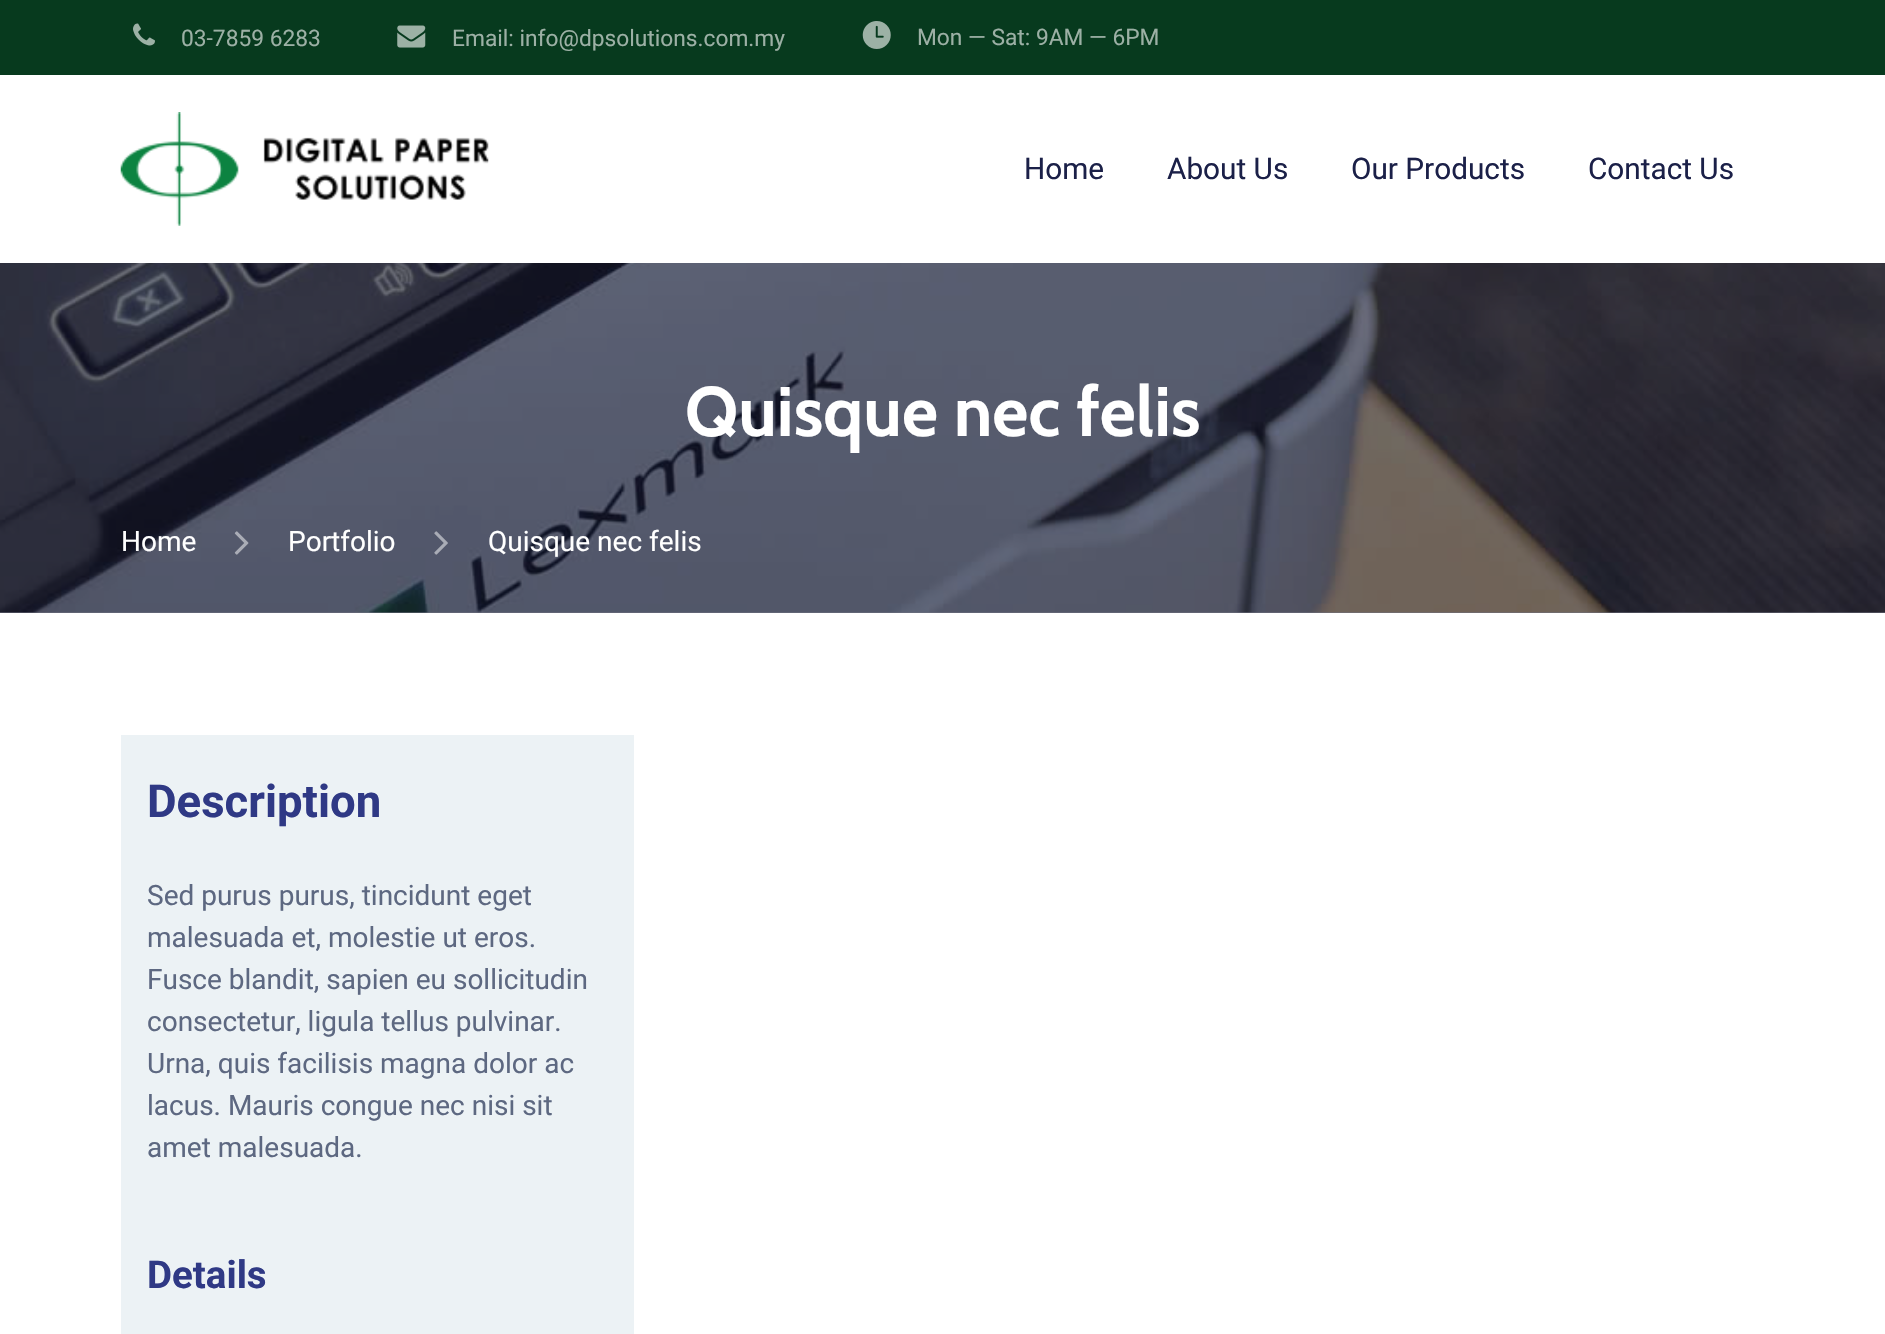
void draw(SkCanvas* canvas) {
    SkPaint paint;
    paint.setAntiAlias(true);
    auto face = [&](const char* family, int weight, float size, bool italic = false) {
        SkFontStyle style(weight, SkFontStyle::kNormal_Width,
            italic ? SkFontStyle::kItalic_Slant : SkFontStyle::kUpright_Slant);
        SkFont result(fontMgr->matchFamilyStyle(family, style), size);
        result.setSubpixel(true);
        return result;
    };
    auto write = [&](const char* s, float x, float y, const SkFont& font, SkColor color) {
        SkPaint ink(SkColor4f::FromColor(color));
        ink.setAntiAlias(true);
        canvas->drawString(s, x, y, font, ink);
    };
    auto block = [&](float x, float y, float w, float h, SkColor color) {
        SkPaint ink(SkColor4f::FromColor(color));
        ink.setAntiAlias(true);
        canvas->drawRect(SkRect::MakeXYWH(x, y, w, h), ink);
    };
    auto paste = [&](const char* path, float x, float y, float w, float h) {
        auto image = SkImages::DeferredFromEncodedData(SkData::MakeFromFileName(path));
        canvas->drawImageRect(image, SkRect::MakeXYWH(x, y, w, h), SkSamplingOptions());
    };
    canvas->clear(SK_ColorWHITE);
    block(0, 612, 1885, 1, SkColorSetRGB(112, 113, 128));
    block(0, 0, 1885, 75, SkColorSetRGB(7, 58, 30));
    paste("pic1.png", 133, 23, 22, 23);
    auto kFont1 = face("Roboto", 400, 22.75f);
    write("03-7859 6283", 181, 46, kFont1, SkColorSetRGB(156, 176, 165));
    paste("pic2.png", 397, 25, 29, 23);
    write("Email: info@dpsolutions.com.my", 452, 46, kFont1, SkColorSetRGB(156, 176, 165));
    paste("pic3.png", 862, 21, 29, 28);
    write("Mon — Sat: 9AM — 6PM", 917, 45, kFont1, SkColorSetRGB(156, 176, 165));
    paste("pic4.png", 120, 112, 369, 114);
    auto kFont2 = face("Roboto", 400, 29.75f);
    write("Home", 1024, 179, kFont2, SkColorSetRGB(27, 32, 72));
    write("About Us", 1167, 179, kFont2, SkColorSetRGB(27, 32, 72));
    write("Our Products", 1351, 179, kFont2, SkColorSetRGB(27, 32, 72));
    write("Contact Us", 1588, 179, kFont2, SkColorSetRGB(27, 32, 72));
    paste("pic5.png", 0, 263, 1885, 350);
    auto kFont3 = face("Cabin", 700, 70);
    write("Quisque nec felis", 685, 436, kFont3, SK_ColorWHITE);
    auto kFont4 = face("Roboto", 400, 28);
    write("Home", 121, 551, kFont4, SK_ColorWHITE);
    paste("pic6.png", 234, 531, 15, 24);
    write("Portfolio", 288, 551, kFont4, SK_ColorWHITE);
    paste("pic7.png", 434, 531, 14, 24);
    write("Quisque nec felis", 488, 551, kFont4, SK_ColorWHITE);
    block(121, 735, 513, 599, SkColorSetRGB(236, 242, 245));
    auto kFont5 = face("Roboto", 700, 45.5f);
    write("Description", 147, 817, kFont5, SkColorSetRGB(47, 57, 133));
    write("Sed purus purus, tincidunt eget", 147, 905, kFont4, SkColorSetRGB(93, 104, 129));
    write("malesuada et, molestie ut eros.", 147, 947, kFont4, SkColorSetRGB(93, 104, 129));
    write("Fusce blandit, sapien eu sollicitudin", 147, 989, kFont4, SkColorSetRGB(93, 104, 129));
    write("consectetur, ligula tellus pulvinar.", 147, 1031, kFont4, SkColorSetRGB(93, 104, 129));
    write("Urna, quis facilisis magna dolor ac", 147, 1073, kFont4, SkColorSetRGB(93, 104, 129));
    write("lacus. Mauris congue nec nisi sit", 147, 1115, kFont4, SkColorSetRGB(93, 104, 129));
    write("amet malesuada.", 147, 1157, kFont4, SkColorSetRGB(93, 104, 129));
    auto kFont6 = face("Roboto", 700, 38.5f);
    write("Details", 147, 1288, kFont6, SkColorSetRGB(47, 57, 133));
}
